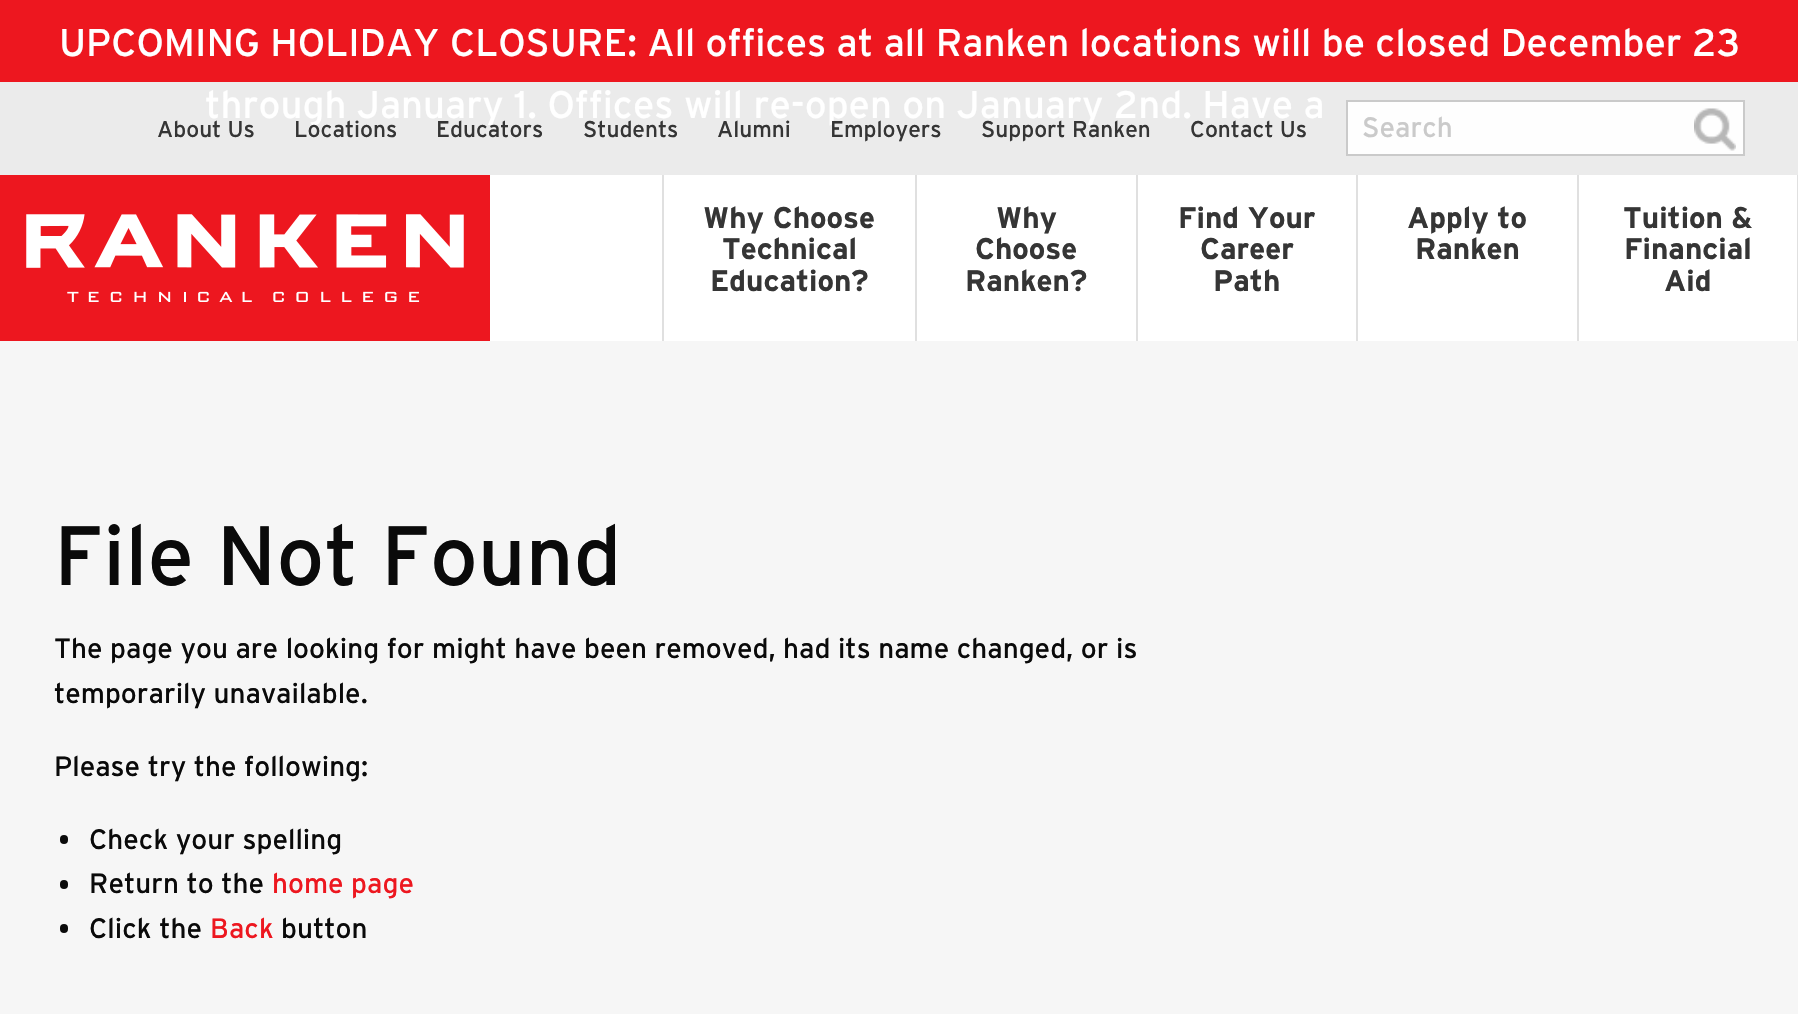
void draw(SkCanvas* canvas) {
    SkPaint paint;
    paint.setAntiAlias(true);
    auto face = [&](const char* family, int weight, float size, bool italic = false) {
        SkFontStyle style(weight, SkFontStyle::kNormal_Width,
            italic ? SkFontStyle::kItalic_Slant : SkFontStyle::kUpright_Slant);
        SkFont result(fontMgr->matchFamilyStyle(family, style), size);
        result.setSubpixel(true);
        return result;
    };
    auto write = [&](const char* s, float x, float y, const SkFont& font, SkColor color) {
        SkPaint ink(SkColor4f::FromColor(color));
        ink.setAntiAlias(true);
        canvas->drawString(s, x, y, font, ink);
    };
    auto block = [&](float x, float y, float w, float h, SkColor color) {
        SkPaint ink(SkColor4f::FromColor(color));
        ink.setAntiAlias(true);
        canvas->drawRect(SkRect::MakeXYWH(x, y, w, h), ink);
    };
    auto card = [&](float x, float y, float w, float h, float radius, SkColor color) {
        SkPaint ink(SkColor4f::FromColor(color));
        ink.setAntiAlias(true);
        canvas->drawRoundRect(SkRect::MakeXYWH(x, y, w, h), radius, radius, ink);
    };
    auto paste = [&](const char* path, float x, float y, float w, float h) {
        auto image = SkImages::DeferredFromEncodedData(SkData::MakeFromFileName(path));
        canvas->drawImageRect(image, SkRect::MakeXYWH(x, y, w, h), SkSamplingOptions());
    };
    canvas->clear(SkColorSetRGB(246, 246, 246));
    block(490, 175, 1307, 166, SK_ColorWHITE);
    block(0, 0, 1798, 82, SkColorSetRGB(237, 23, 31));
    auto kFont1 = face("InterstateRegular", 400, 38.5f);
    write("UPCOMING HOLIDAY CLOSURE: All offices at all Ranken locations will be closed December 23", 59, 56, kFont1, SK_ColorWHITE);
    block(0, 82, 1798, 93, SkColorSetRGB(235, 235, 235));
    write("through January 1. Offices will re-open on January 2nd. Have a", 205, 118, kFont1, SK_ColorWHITE);
    auto kFont2 = face("InterstateRegular", 400, 22.75f);
    write("About Us", 157, 137, kFont2, SkColorSetRGB(53, 53, 53));
    write("Locations", 294, 137, kFont2, SkColorSetRGB(53, 53, 53));
    write("Educators", 436, 137, kFont2, SkColorSetRGB(53, 53, 53));
    write("Students", 583, 137, kFont2, SkColorSetRGB(53, 53, 53));
    write("Alumni", 717, 137, kFont2, SkColorSetRGB(53, 53, 53));
    write("Employers", 830, 137, kFont2, SkColorSetRGB(53, 53, 53));
    write("Support Ranken", 981, 137, kFont2, SkColorSetRGB(53, 53, 53));
    write("Contact Us", 1190, 137, kFont2, SkColorSetRGB(53, 53, 53));
    paint.setColor(SkColorSetRGB(254, 254, 254));
    canvas->drawRect(SkRect::MakeXYWH(1347, 101, 397, 54), paint);
    paint.setStyle(SkPaint::kStroke_Style);
    paint.setStrokeWidth(2);
    paint.setColor(SkColorSetRGB(202, 202, 202));
    canvas->drawRect(SkRect::MakeXYWH(1347, 101, 397, 54), paint);
    auto kFont3 = face("InterstateRegular", 400, 28);
    write("Search", 1362, 137, kFont3, SkColorSetRGB(202, 202, 202));
    paste("pic1.png", 1694, 108, 42, 43);
    block(0, 175, 490, 166, SkColorSetRGB(237, 23, 31));
    paste("pic2.png", 26, 214, 438, 88);
    block(915, 175, 2, 166, SkColorSetRGB(224, 224, 224));
    block(662, 175, 2, 166, SkColorSetRGB(224, 224, 224));
    auto kFont4 = face("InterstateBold", 700, 29.75f);
    write("Why Choose", 703, 228, kFont4, SkColorSetRGB(53, 53, 53));
    write("Technical", 722, 259, kFont4, SkColorSetRGB(53, 53, 53));
    write("Education?", 710, 291, kFont4, SkColorSetRGB(53, 53, 53));
    block(1136, 175, 2, 166, SkColorSetRGB(224, 224, 224));
    write("Why", 996, 228, kFont4, SkColorSetRGB(53, 53, 53));
    write("Choose", 975, 259, kFont4, SkColorSetRGB(53, 53, 53));
    write("Ranken?", 965, 291, kFont4, SkColorSetRGB(53, 53, 53));
    block(1356, 175, 2, 166, SkColorSetRGB(224, 224, 224));
    write("Find Your", 1178, 228, kFont4, SkColorSetRGB(53, 53, 53));
    write("Career", 1200, 259, kFont4, SkColorSetRGB(53, 53, 53));
    write("Path", 1213, 291, kFont4, SkColorSetRGB(53, 53, 53));
    block(1577, 175, 2, 166, SkColorSetRGB(224, 224, 224));
    write("Apply to", 1407, 228, kFont4, SkColorSetRGB(53, 53, 53));
    write("Ranken", 1415, 259, kFont4, SkColorSetRGB(53, 53, 53));
    block(1797, 175, 1, 166, SkColorSetRGB(224, 224, 224));
    write("Tuition &", 1623, 228, kFont4, SkColorSetRGB(53, 53, 53));
    write("Financial", 1624, 259, kFont4, SkColorSetRGB(53, 53, 53));
    write("Aid", 1664, 291, kFont4, SkColorSetRGB(53, 53, 53));
    auto kFont5 = face("InterstateRegular", 400, 84);
    write("File Not Found", 54, 585, kFont5, SkColorSetRGB(10, 10, 10));
    write("The page you are looking for might have been removed, had its name changed, or is", 54, 658, kFont3, SkColorSetRGB(10, 10, 10));
    write("temporarily unavailable.", 54, 703, kFont3, SkColorSetRGB(10, 10, 10));
    write("Please try the following:", 54, 776, kFont3, SkColorSetRGB(10, 10, 10));
    card(60, 835, 8, 9, 4, SkColorSetRGB(10, 10, 10));
    write("Check your spelling", 89, 849, kFont3, SkColorSetRGB(10, 10, 10));
    card(60, 880, 8, 9, 4, SkColorSetRGB(10, 10, 10));
    write("Return to the", 89, 893, kFont3, SkColorSetRGB(10, 10, 10));
    write("home page", 272, 893, kFont3, SkColorSetRGB(237, 23, 31));
    card(60, 924, 8, 9, 4, SkColorSetRGB(10, 10, 10));
    write("Click the", 89, 938, kFont3, SkColorSetRGB(10, 10, 10));
    write("Back", 210, 938, kFont3, SkColorSetRGB(237, 23, 31));
    write("button", 281, 938, kFont3, SkColorSetRGB(10, 10, 10));
}
